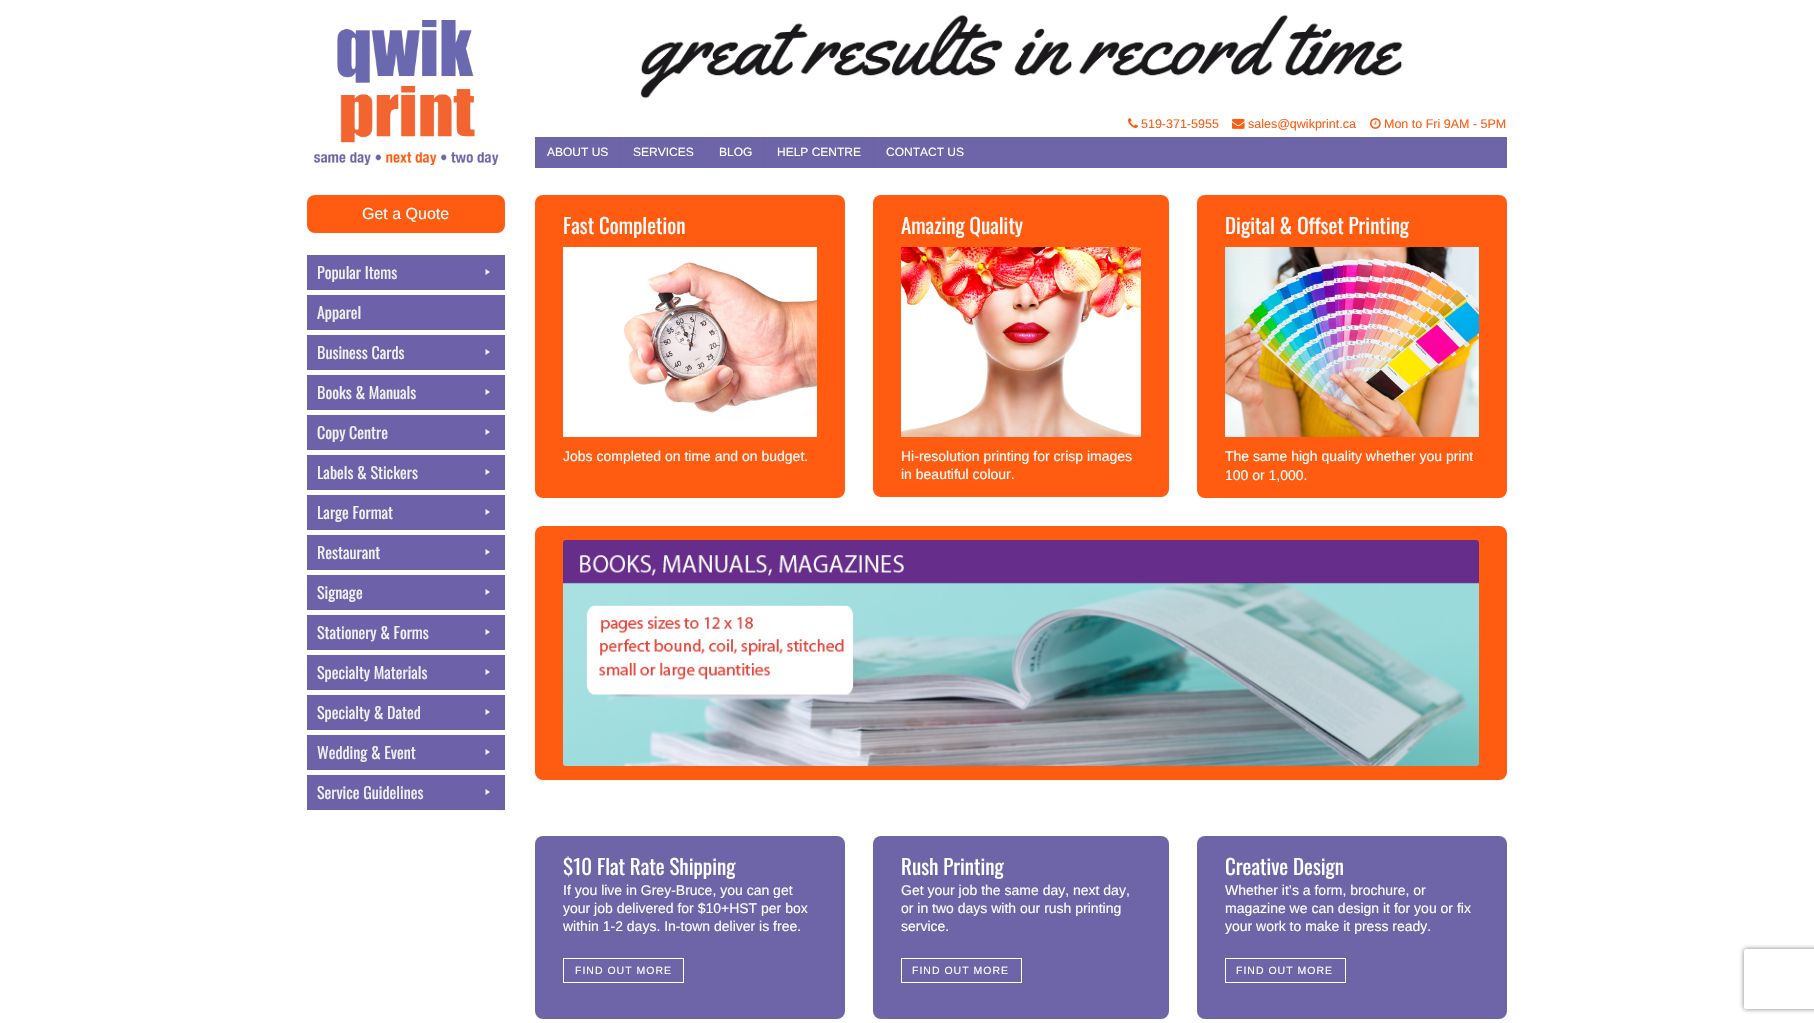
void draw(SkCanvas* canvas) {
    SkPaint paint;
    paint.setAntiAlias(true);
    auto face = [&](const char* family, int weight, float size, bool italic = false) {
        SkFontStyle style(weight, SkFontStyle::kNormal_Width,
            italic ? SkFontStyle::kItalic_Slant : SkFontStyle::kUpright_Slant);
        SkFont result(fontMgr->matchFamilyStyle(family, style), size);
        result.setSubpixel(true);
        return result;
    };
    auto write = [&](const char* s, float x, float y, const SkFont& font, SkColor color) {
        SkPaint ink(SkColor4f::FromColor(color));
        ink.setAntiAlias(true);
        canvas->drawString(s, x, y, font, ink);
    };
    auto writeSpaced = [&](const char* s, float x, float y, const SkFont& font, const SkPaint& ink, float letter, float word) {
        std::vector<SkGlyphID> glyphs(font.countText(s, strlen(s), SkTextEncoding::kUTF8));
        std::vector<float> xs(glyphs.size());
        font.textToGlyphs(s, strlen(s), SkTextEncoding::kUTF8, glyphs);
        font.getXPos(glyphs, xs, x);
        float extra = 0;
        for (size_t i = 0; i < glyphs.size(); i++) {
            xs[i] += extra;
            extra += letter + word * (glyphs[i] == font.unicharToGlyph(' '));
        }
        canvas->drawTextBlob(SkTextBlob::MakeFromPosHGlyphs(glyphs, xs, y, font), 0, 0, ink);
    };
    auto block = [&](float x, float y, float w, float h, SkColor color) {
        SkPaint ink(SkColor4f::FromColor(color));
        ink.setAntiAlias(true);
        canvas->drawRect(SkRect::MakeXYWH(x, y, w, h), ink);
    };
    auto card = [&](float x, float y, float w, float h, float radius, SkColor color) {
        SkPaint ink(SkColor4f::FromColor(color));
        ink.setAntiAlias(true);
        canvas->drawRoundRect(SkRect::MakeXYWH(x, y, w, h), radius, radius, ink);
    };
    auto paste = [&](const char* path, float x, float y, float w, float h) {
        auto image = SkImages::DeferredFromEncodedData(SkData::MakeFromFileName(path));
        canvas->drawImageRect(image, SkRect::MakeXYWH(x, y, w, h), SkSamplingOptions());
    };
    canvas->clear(SK_ColorWHITE);
    paste("pic1.png", 313, 20, 186, 145);
    paste("pic2.png", 640, 14, 763, 85);
    paste("pic3.png", 1128, 118, 10, 10);
    auto kFont1 = face("Liberation Sans", 400, 12.5f);
    write("519-371-5955", 1141, 128, kFont1, SkColorSetRGB(255, 91, 17));
    paste("pic4.png", 1232, 119, 13, 10);
    write("sales@qwikprint.ca", 1248, 128, kFont1, SkColorSetRGB(255, 91, 17));
    paste("pic5.png", 1370, 118, 11, 11);
    write("Mon to Fri 9AM - 5PM", 1384, 128, kFont1, SkColorSetRGB(255, 91, 17));
    block(535, 137, 972, 31, SkColorSetRGB(110, 100, 168));
    auto kFont2 = face("Liberation Sans", 400, 12);
    write("ABOUT US", 547, 156, kFont2, SK_ColorWHITE);
    block(620, 137, 1, 31, SkColorSetRGB(109, 97, 169));
    write("SERVICES", 633, 156, kFont2, SK_ColorWHITE);
    block(706, 137, 1, 31, SkColorSetRGB(109, 97, 169));
    write("BLOG", 719, 156, kFont2, SK_ColorWHITE);
    block(764, 137, 1, 31, SkColorSetRGB(109, 97, 169));
    write("HELP CENTRE", 777, 156, kFont2, SK_ColorWHITE);
    block(873, 137, 1, 31, SkColorSetRGB(109, 97, 169));
    write("CONTACT US", 886, 156, kFont2, SK_ColorWHITE);
    card(307, 195, 198, 38, 8, SkColorSetRGB(255, 91, 17));
    auto kFont3 = face("Liberation Sans", 400, 16);
    write("Get a Quote", 362, 219, kFont3, SK_ColorWHITE);
    block(307, 255, 198, 35, SkColorSetRGB(109, 97, 169));
    auto kFont4 = face("Oswald", 400, 16);
    write("Popular Items", 317, 279, kFont4, SkColorSetRGB(241, 241, 241));
    paint.setColor(SkColorSetRGB(241, 241, 241));
    canvas->drawPath(SkPathBuilder().moveTo(485.5f, 269).lineTo(490, 272).lineTo(485.5f, 275).close().detach(), paint);
    block(307, 295, 198, 35, SkColorSetRGB(109, 97, 169));
    write("Apparel", 317, 319, kFont4, SkColorSetRGB(241, 241, 241));
    block(307, 335, 198, 35, SkColorSetRGB(109, 97, 169));
    write("Business Cards", 317, 359, kFont4, SkColorSetRGB(241, 241, 241));
    canvas->drawPath(SkPathBuilder().moveTo(485.5f, 349).lineTo(490, 352).lineTo(485.5f, 355).close().detach(), paint);
    block(307, 375, 198, 35, SkColorSetRGB(109, 97, 169));
    write("Books & Manuals", 317, 399, kFont4, SkColorSetRGB(241, 241, 241));
    canvas->drawPath(SkPathBuilder().moveTo(485.5f, 389).lineTo(490, 392).lineTo(485.5f, 395).close().detach(), paint);
    block(307, 415, 198, 35, SkColorSetRGB(109, 97, 169));
    write("Copy Centre", 317, 439, kFont4, SkColorSetRGB(241, 241, 241));
    canvas->drawPath(SkPathBuilder().moveTo(485.5f, 429).lineTo(490, 432).lineTo(485.5f, 435).close().detach(), paint);
    block(307, 455, 198, 35, SkColorSetRGB(109, 97, 169));
    write("Labels & Stickers", 317, 479, kFont4, SkColorSetRGB(241, 241, 241));
    canvas->drawPath(SkPathBuilder().moveTo(485.5f, 469).lineTo(490, 472).lineTo(485.5f, 475).close().detach(), paint);
    block(307, 495, 198, 35, SkColorSetRGB(109, 97, 169));
    write("Large Format", 317, 519, kFont4, SkColorSetRGB(241, 241, 241));
    canvas->drawPath(SkPathBuilder().moveTo(485.5f, 509).lineTo(490, 512).lineTo(485.5f, 515).close().detach(), paint);
    block(307, 535, 198, 35, SkColorSetRGB(109, 97, 169));
    write("Restaurant", 317, 559, kFont4, SkColorSetRGB(241, 241, 241));
    canvas->drawPath(SkPathBuilder().moveTo(485.5f, 549).lineTo(490, 552).lineTo(485.5f, 555).close().detach(), paint);
    block(307, 575, 198, 35, SkColorSetRGB(109, 97, 169));
    write("Signage", 317, 599, kFont4, SkColorSetRGB(241, 241, 241));
    canvas->drawPath(SkPathBuilder().moveTo(485.5f, 589).lineTo(490, 592).lineTo(485.5f, 595).close().detach(), paint);
    block(307, 615, 198, 35, SkColorSetRGB(109, 97, 169));
    write("Stationery & Forms", 317, 639, kFont4, SkColorSetRGB(241, 241, 241));
    canvas->drawPath(SkPathBuilder().moveTo(485.5f, 629).lineTo(490, 632).lineTo(485.5f, 635).close().detach(), paint);
    block(307, 655, 198, 35, SkColorSetRGB(109, 97, 169));
    write("Specialty Materials", 317, 679, kFont4, SkColorSetRGB(241, 241, 241));
    canvas->drawPath(SkPathBuilder().moveTo(485.5f, 669).lineTo(490, 672).lineTo(485.5f, 675).close().detach(), paint);
    block(307, 695, 198, 35, SkColorSetRGB(109, 97, 169));
    write("Specialty & Dated", 317, 719, kFont4, SkColorSetRGB(241, 241, 241));
    canvas->drawPath(SkPathBuilder().moveTo(485.5f, 709).lineTo(490, 712).lineTo(485.5f, 715).close().detach(), paint);
    block(307, 735, 198, 35, SkColorSetRGB(109, 97, 169));
    write("Wedding & Event", 317, 759, kFont4, SkColorSetRGB(241, 241, 241));
    canvas->drawPath(SkPathBuilder().moveTo(485.5f, 749).lineTo(490, 752).lineTo(485.5f, 755).close().detach(), paint);
    block(307, 775, 198, 35, SkColorSetRGB(109, 97, 169));
    write("Service Guidelines", 317, 799, kFont4, SkColorSetRGB(241, 241, 241));
    canvas->drawPath(SkPathBuilder().moveTo(485.5f, 789).lineTo(490, 792).lineTo(485.5f, 795).close().detach(), paint);
    card(535, 195, 310, 303, 8, SkColorSetRGB(255, 91, 17));
    auto kFont5 = face("Oswald", 400, 21);
    write("Fast Completion", 563, 234, kFont5, SK_ColorWHITE);
    paste("pic6.png", 563, 247, 254, 190);
    auto kFont6 = face("Liberation Sans", 400, 14);
    write("Jobs completed on time and on budget.", 563, 461, kFont6, SK_ColorWHITE);
    card(873, 195, 296, 302, 8, SkColorSetRGB(255, 91, 17));
    write("Amazing Quality", 901, 234, kFont5, SK_ColorWHITE);
    paste("pic7.png", 901, 247, 240, 190);
    write("Hi-resolution printing for crisp images", 901, 461, kFont6, SK_ColorWHITE);
    write("in beautiful colour.", 901, 479, kFont6, SK_ColorWHITE);
    card(1197, 195, 310, 303, 8, SkColorSetRGB(255, 91, 17));
    write("Digital & Offset Printing", 1225, 234, kFont5, SK_ColorWHITE);
    paste("pic8.png", 1225, 247, 254, 190);
    write("The same high quality whether you print", 1225, 461, kFont6, SK_ColorWHITE);
    write("100 or 1,000.", 1225, 480, kFont6, SK_ColorWHITE);
    card(535, 526, 972, 254, 8, SkColorSetRGB(255, 91, 17));
    paste("pic9.png", 563, 540, 916, 226);
    card(535, 836, 310, 183, 8, SkColorSetRGB(110, 100, 168));
    write("$10 Flat Rate Shipping", 563, 875, kFont5, SK_ColorWHITE);
    write("If you live in Grey-Bruce, you can get", 563, 895, kFont6, SK_ColorWHITE);
    write("your job delivered for $10+HST per box", 563, 913, kFont6, SK_ColorWHITE);
    write("within 1-2 days. In-town deliver is free.", 563, 931, kFont6, SK_ColorWHITE);
    paint.setStyle(SkPaint::kStroke_Style);
    paint.setStrokeWidth(1);
    paint.setColor(SK_ColorWHITE);
    canvas->drawRect(SkRect::MakeXYWH(563.5f, 958.5f, 120, 24), paint);
    auto kFont7 = face("Liberation Sans", 400, 10.5f);
    paint.setStyle(SkPaint::kFill_Style);
    writeSpaced("FIND OUT MORE", 575, 974, kFont7, paint, 1, 0);
    card(873, 836, 296, 183, 8, SkColorSetRGB(110, 100, 168));
    write("Rush Printing", 901, 875, kFont5, SK_ColorWHITE);
    write("Get your job the same day, next day,", 901, 895, kFont6, SK_ColorWHITE);
    write("or in two days with our rush printing", 901, 913, kFont6, SK_ColorWHITE);
    write("service.", 901, 931, kFont6, SK_ColorWHITE);
    paint.setStyle(SkPaint::kStroke_Style);
    canvas->drawRect(SkRect::MakeXYWH(901.5f, 958.5f, 120, 24), paint);
    paint.setStyle(SkPaint::kFill_Style);
    writeSpaced("FIND OUT MORE", 912, 974, kFont7, paint, 1, 0);
    card(1197, 836, 310, 183, 8, SkColorSetRGB(110, 100, 168));
    write("Creative Design", 1225, 875, kFont5, SK_ColorWHITE);
    write("Whether it’s a form, brochure, or", 1225, 895, kFont6, SK_ColorWHITE);
    write("magazine we can design it for you or fix", 1225, 913, kFont6, SK_ColorWHITE);
    write("your work to make it press ready.", 1225, 931, kFont6, SK_ColorWHITE);
    paint.setStyle(SkPaint::kStroke_Style);
    canvas->drawRect(SkRect::MakeXYWH(1225.5f, 958.5f, 120, 24), paint);
    paint.setStyle(SkPaint::kFill_Style);
    writeSpaced("FIND OUT MORE", 1236, 974, kFont7, paint, 1, 0);
    canvas->save();
    canvas->clipPath(SkPathBuilder(SkPathFillType::kEvenOdd).moveTo(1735, 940).lineTo(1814, 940).lineTo(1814, 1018).lineTo(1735, 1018).close().moveTo(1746, 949).lineTo(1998, 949).cubicTo(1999, 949, 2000, 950, 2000, 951).lineTo(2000, 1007).cubicTo(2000, 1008, 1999, 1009, 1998, 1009).lineTo(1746, 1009).cubicTo(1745, 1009, 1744, 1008, 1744, 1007).lineTo(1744, 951).cubicTo(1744, 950, 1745, 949, 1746, 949).close().detach(), true);
    paint.setColor(SkColorSetRGB(128, 128, 128));
    paint.setMaskFilter(SkMaskFilter::MakeBlur(kNormal_SkBlurStyle, 2.5f));
    canvas->drawRoundRect(SkRect::MakeXYWH(1744, 949, 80, 60), 2, 2, paint);
    paint.setMaskFilter(nullptr);
    canvas->restore();
}
